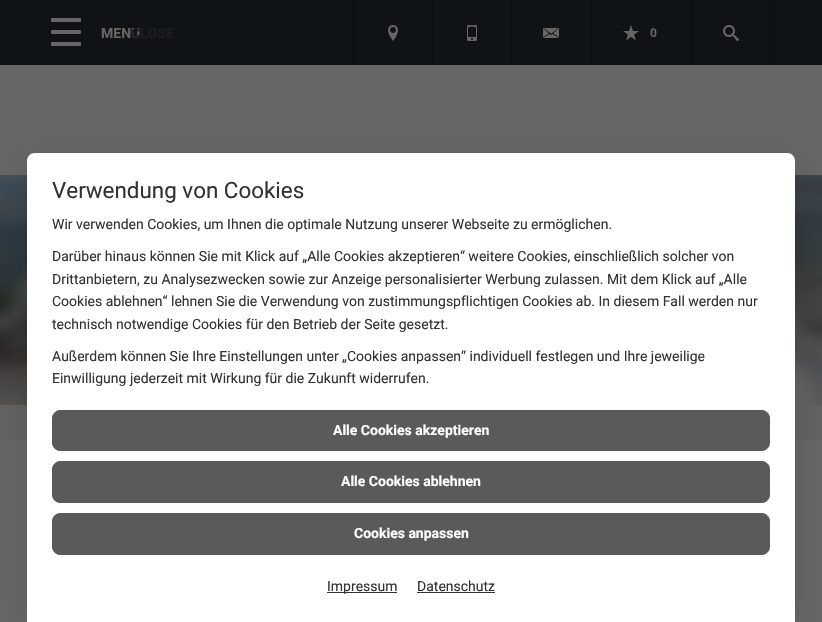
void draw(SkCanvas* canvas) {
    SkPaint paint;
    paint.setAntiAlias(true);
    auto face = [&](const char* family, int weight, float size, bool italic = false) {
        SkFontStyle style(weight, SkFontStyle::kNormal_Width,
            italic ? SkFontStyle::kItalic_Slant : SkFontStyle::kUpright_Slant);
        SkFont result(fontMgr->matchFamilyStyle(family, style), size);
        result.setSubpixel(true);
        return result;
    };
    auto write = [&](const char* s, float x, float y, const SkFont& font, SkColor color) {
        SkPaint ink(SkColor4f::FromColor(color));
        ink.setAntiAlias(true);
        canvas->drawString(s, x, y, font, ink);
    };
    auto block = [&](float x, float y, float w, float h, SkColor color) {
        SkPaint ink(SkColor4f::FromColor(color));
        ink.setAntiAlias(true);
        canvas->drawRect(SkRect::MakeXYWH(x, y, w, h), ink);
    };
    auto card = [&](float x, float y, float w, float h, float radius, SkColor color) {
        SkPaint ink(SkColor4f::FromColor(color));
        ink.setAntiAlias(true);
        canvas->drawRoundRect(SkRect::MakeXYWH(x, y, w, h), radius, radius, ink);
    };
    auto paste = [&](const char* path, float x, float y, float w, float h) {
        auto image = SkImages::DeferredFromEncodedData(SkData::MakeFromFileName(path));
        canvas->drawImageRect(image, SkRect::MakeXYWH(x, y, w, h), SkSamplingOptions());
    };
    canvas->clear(SkColorSetRGB(102, 102, 102));
    block(0, 0, 822, 65, SkColorSetRGB(16, 19, 22));
    card(51, 18, 30, 4, 1, SkColorSetRGB(102, 102, 102));
    card(51, 30, 30, 4, 1, SkColorSetRGB(102, 102, 102));
    card(51, 42, 30, 4, 1, SkColorSetRGB(102, 102, 102));
    auto kFont1 = face("Roboto", 700, 14);
    write("MENU", 101, 38, kFont1, SkColorSetRGB(102, 102, 102));
    write("CLOSE", 131, 38, kFont1, SkColorSetRGB(27, 29, 32));
    block(353, 0, 1, 65, SkColorSetRGB(10, 12, 14));
    paste("pic1.png", 388, 25, 10, 16);
    block(432, 0, 1, 65, SkColorSetRGB(10, 12, 14));
    paste("pic2.png", 467, 25, 10, 16);
    block(511, 0, 1, 65, SkColorSetRGB(10, 12, 14));
    paste("pic3.png", 543, 28, 16, 10);
    block(591, 0, 1, 65, SkColorSetRGB(10, 12, 14));
    paste("pic4.png", 623, 25, 16, 16);
    auto kFont2 = face("Roboto", 700, 12);
    write("0", 650, 37, kFont2, SkColorSetRGB(102, 102, 102));
    block(770, 0, 1, 65, SkColorSetRGB(10, 12, 14));
    block(691, 0, 1, 65, SkColorSetRGB(10, 12, 14));
    paste("pic5.png", 723, 25, 16, 16);
    paste("pic6.png", 0, 175, 822, 230);
    block(0, 405, 822, 35, SkColorSetRGB(98, 98, 98));
    paint.setColor(SkColorSetARGB(26, 0, 0, 0));
    paint.setMaskFilter(SkMaskFilter::MakeBlur(kNormal_SkBlurStyle, 14));
    canvas->drawRoundRect(SkRect::MakeXYWH(27, 159, 768, 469), 8, 8, paint);
    paint.setMaskFilter(nullptr);
    paint.setColor(SK_ColorWHITE);
    canvas->drawPath(SkPathBuilder().moveTo(35, 153).lineTo(787, 153).cubicTo(791.5f, 153, 795, 156.5f, 795, 161).lineTo(795, 622).lineTo(27, 622).lineTo(27, 161).cubicTo(27, 156.5f, 30.5f, 153, 35, 153).close().detach(), paint);
    auto kFont3 = face("Roboto", 400, 22.4f);
    write("Verwendung von Cookies", 52, 198, kFont3, SkColorSetRGB(51, 51, 51));
    auto kFont4 = face("Roboto", 400, 14);
    write("Wir verwenden Cookies, um Ihnen die optimale Nutzung unserer Webseite zu ermöglichen.", 52, 229, kFont4, SkColorSetRGB(51, 51, 51));
    write("Darüber hinaus können Sie mit Klick auf „Alle Cookies akzeptieren“ weitere Cookies, einschließlich solcher von", 52, 261, kFont4, SkColorSetRGB(51, 51, 51));
    write("Drittanbietern, zu Analysezwecken sowie zur Anzeige personalisierter Werbung zulassen. Mit dem Klick auf „Alle", 52, 284, kFont4, SkColorSetRGB(51, 51, 51));
    write("Cookies ablehnen“ lehnen Sie die Verwendung von zustimmungspflichtigen Cookies ab. In diesem Fall werden nur", 52, 306, kFont4, SkColorSetRGB(51, 51, 51));
    write("technisch notwendige Cookies für den Betrieb der Seite gesetzt.", 52, 329, kFont4, SkColorSetRGB(51, 51, 51));
    write("Außerdem können Sie Ihre Einstellungen unter „Cookies anpassen“ individuell festlegen und Ihre jeweilige", 52, 361, kFont4, SkColorSetRGB(51, 51, 51));
    write("Einwilligung jederzeit mit Wirkung für die Zukunft widerrufen.", 52, 383, kFont4, SkColorSetRGB(51, 51, 51));
    paint.setColor(SkColorSetRGB(90, 90, 90));
    canvas->drawRoundRect(SkRect::MakeXYWH(52.5f, 410.5f, 717, 40), 7.5f, 7.5f, paint);
    paint.setStyle(SkPaint::kStroke_Style);
    paint.setStrokeWidth(1);
    canvas->drawRoundRect(SkRect::MakeXYWH(52.5f, 410.5f, 717, 40), 7.5f, 7.5f, paint);
    write("Alle Cookies akzeptieren", 333, 435, kFont1, SK_ColorWHITE);
    paint.setStyle(SkPaint::kFill_Style);
    canvas->drawRoundRect(SkRect::MakeXYWH(52.5f, 461.5f, 717, 41), 7.5f, 7.5f, paint);
    paint.setStyle(SkPaint::kStroke_Style);
    canvas->drawRoundRect(SkRect::MakeXYWH(52.5f, 461.5f, 717, 41), 7.5f, 7.5f, paint);
    write("Alle Cookies ablehnen", 341, 486, kFont1, SK_ColorWHITE);
    paint.setStyle(SkPaint::kFill_Style);
    canvas->drawRoundRect(SkRect::MakeXYWH(52.5f, 513.5f, 717, 41), 7.5f, 7.5f, paint);
    paint.setStyle(SkPaint::kStroke_Style);
    canvas->drawRoundRect(SkRect::MakeXYWH(52.5f, 513.5f, 717, 41), 7.5f, 7.5f, paint);
    write("Cookies anpassen", 354, 538, kFont1, SK_ColorWHITE);
    block(327, 592, 70, 1, SkColorSetRGB(51, 51, 51));
    write("Impressum", 327, 591, kFont4, SkColorSetRGB(51, 51, 51));
    write("Datenschutz", 417, 591, kFont4, SkColorSetRGB(51, 51, 51));
    block(417, 592, 78, 1, SkColorSetRGB(51, 51, 51));
}
